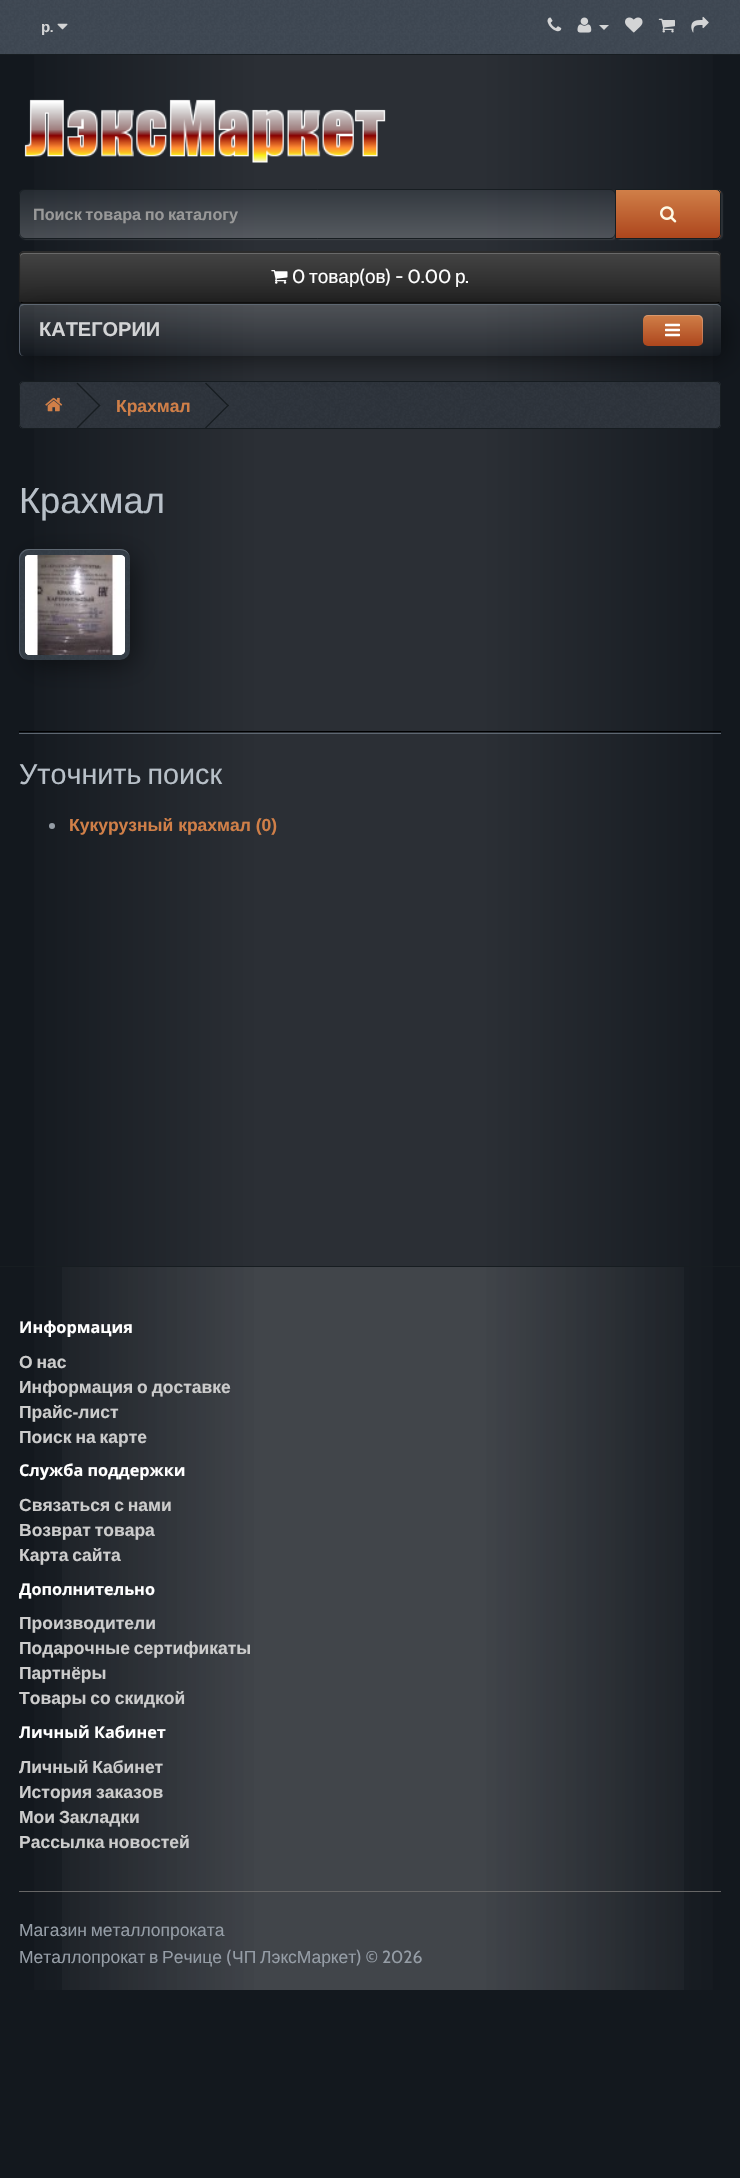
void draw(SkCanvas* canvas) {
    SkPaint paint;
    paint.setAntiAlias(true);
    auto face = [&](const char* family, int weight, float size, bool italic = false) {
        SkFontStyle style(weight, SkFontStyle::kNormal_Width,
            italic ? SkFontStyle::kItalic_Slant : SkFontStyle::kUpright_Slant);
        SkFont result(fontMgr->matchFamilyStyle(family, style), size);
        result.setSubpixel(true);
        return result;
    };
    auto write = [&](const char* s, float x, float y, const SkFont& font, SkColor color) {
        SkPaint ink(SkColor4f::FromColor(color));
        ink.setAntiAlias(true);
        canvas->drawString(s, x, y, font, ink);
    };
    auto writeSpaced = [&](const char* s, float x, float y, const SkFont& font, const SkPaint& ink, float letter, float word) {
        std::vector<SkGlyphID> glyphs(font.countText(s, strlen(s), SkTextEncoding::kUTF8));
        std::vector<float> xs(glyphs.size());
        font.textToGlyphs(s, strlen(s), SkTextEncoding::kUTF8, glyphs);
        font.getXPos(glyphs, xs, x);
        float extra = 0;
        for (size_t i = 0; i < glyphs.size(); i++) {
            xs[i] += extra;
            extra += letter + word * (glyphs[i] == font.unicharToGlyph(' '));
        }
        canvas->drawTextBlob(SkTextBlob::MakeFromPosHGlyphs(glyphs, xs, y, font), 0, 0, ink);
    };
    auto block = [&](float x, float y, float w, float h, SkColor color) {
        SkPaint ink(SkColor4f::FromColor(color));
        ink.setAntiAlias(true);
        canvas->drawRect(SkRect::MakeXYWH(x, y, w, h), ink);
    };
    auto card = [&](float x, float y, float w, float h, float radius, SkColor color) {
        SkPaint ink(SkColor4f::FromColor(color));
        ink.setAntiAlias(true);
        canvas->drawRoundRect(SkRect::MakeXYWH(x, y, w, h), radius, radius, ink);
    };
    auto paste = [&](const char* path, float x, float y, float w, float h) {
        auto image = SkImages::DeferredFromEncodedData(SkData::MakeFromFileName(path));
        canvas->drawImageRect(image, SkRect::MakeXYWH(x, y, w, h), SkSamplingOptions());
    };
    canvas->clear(SkColorSetRGB(19, 24, 30));
    {
        const SkColor colors[] = {SkColorSetRGB(19, 24, 30), SkColorSetRGB(19, 24, 30), SkColorSetRGB(43, 47, 53), SkColorSetRGB(43, 47, 53), SkColorSetRGB(19, 24, 30)};
        const float stops[] = {0, 0.01f, 0.35f, 0.65f, 1};
        const SkPoint ends[] = {{0, 995}, {740, 995}};
        paint.setShader(SkGradientShader::MakeLinear(ends, colors, stops, 5, SkTileMode::kClamp));
        paint.setAlpha(255);
    }
    canvas->drawRect(SkRect::MakeXYWH(34, 55, 679, 1935), paint);
    paste("pic1.png", 0, 0, 740, 54);
    block(0, 54, 740, 1, SkColorSetRGB(23, 29, 33));
    auto kFont1 = face("Liberation Sans", 700, 15);
    write("р", 41, 32, kFont1, SkColorSetRGB(211, 212, 213));
    paste("pic2.png", 57, 23, 11, 7);
    auto kFont2 = face("Cabin", 600, 15);
    write(".", 50, 32, kFont2, SkColorSetRGB(211, 212, 213));
    paste("pic3.png", 547, 17, 15, 15);
    paste("pic4.png", 577, 17, 15, 16);
    paint.setShader(nullptr);
    paint.setColor(SkColorSetRGB(211, 212, 213));
    canvas->drawPath(SkPathBuilder().moveTo(599, 25).lineTo(609, 25).lineTo(604, 30).close().detach(), paint);
    paste("pic5.png", 625, 17, 18, 16);
    paste("pic6.png", 658, 18, 17, 15);
    paste("pic7.png", 691, 16, 18, 17);
    paste("pic8.png", 24, 99, 362, 64);
    canvas->save();
    canvas->clipPath(SkPathBuilder(SkPathFillType::kEvenOdd).moveTo(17, 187).lineTo(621, 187).lineTo(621, 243).lineTo(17, 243).close().moveTo(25, 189).lineTo(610, 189).cubicTo(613.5f, 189, 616, 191.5f, 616, 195).lineTo(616, 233).cubicTo(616, 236.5f, 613.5f, 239, 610, 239).lineTo(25, 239).cubicTo(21.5f, 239, 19, 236.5f, 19, 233).lineTo(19, 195).cubicTo(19, 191.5f, 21.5f, 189, 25, 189).close().detach(), true);
    paint.setColor(SkColorSetARGB(26, 255, 255, 255));
    paint.setMaskFilter(SkMaskFilter::MakeBlur(kNormal_SkBlurStyle, 0.5f));
    canvas->drawRoundRect(SkRect::MakeXYWH(20, 190, 598, 50), 6, 6, paint);
    paint.setMaskFilter(nullptr);
    canvas->restore();
    canvas->save();
    canvas->clipPath(SkPathBuilder().moveTo(25, 189).lineTo(610, 189).cubicTo(613.5f, 189, 616, 191.5f, 616, 195).lineTo(616, 233).cubicTo(616, 236.5f, 613.5f, 239, 610, 239).lineTo(25, 239).cubicTo(21.5f, 239, 19, 236.5f, 19, 233).lineTo(19, 195).cubicTo(19, 191.5f, 21.5f, 189, 25, 189).close().detach(), true);
    {
        const SkColor colors[] = {SkColorSetARGB(102, 63, 70, 78), SkColorSetARGB(102, 64, 71, 79), SkColorSetARGB(102, 148, 152, 158)};
        const float stops[] = {0, 0.01f, 1};
        const SkPoint ends[] = {{318, 190}, {318, 238}};
        paint.setShader(SkGradientShader::MakeLinear(ends, colors, stops, 3, SkTileMode::kClamp));
        paint.setAlpha(255);
    }
    canvas->drawRect(SkRect::MakeXYWH(19, 190, 596, 48), paint);
    canvas->restore();
    paint.setStyle(SkPaint::kStroke_Style);
    paint.setStrokeWidth(1);
    paint.setShader(nullptr);
    paint.setColor(SkColorSetRGB(23, 29, 33));
    canvas->drawRoundRect(SkRect::MakeXYWH(19.5f, 189.5f, 596, 49), 5.5f, 5.5f, paint);
    auto kFont3 = face("Liberation Sans", 700, 16.25f);
    paint.setStyle(SkPaint::kFill_Style);
    paint.setColor(SkColorSetRGB(153, 153, 153));
    writeSpaced("Поиск товара по каталогу", 33, 220, kFont3, paint, 0, -1);
    paint.setColor(SkColorSetARGB(26, 255, 255, 255));
    paint.setMaskFilter(SkMaskFilter::MakeBlur(kNormal_SkBlurStyle, 0.5f));
    canvas->drawRoundRect(SkRect::MakeXYWH(616, 190, 107, 50), 5, 5, paint);
    paint.setMaskFilter(nullptr);
    canvas->save();
    canvas->clipPath(SkPathBuilder().moveTo(615, 189).lineTo(716, 189).cubicTo(719, 189, 721, 191, 721, 194).lineTo(721, 234).cubicTo(721, 237, 719, 239, 716, 239).lineTo(615, 239).close().detach(), true);
    {
        const SkColor colors[] = {SkColorSetRGB(208, 127, 72), SkColorSetRGB(173, 70, 29)};
        const float stops[] = {0, 1};
        const SkPoint ends[] = {{668, 190}, {668, 238}};
        paint.setShader(SkGradientShader::MakeLinear(ends, colors, stops, 2, SkTileMode::kClamp));
        paint.setAlpha(255);
    }
    canvas->drawRect(SkRect::MakeXYWH(616, 190, 105, 48), paint);
    canvas->restore();
    paint.setStyle(SkPaint::kStroke_Style);
    paint.setShader(nullptr);
    paint.setColor(SkColorSetRGB(23, 29, 33));
    canvas->drawPath(SkPathBuilder().moveTo(615.5f, 189.5f).lineTo(716, 189.5f).cubicTo(718.5f, 189.5f, 720.5f, 191.5f, 720.5f, 194).lineTo(720.5f, 234).cubicTo(720.5f, 236.5f, 718.5f, 238.5f, 716, 238.5f).lineTo(615.5f, 238.5f).close().detach(), paint);
    paste("pic9.png", 660, 206, 17, 17);
    card(19, 251, 702, 53, 5, SkColorSetRGB(54, 54, 54));
    canvas->save();
    canvas->clipPath(SkPathBuilder().moveTo(24, 251).lineTo(716, 251).cubicTo(719, 251, 721, 253, 721, 256).lineTo(721, 299).cubicTo(721, 302, 719, 304, 716, 304).lineTo(24, 304).cubicTo(21, 304, 19, 302, 19, 299).lineTo(19, 256).cubicTo(19, 253, 21, 251, 24, 251).close().detach(), true);
    paint.setStyle(SkPaint::kFill_Style);
    {
        const SkColor colors[] = {SkColorSetRGB(68, 68, 68), SkColorSetRGB(34, 34, 34)};
        const float stops[] = {0, 1};
        const SkPoint ends[] = {{370, 252}, {370, 303}};
        paint.setShader(SkGradientShader::MakeLinear(ends, colors, stops, 2, SkTileMode::kClamp));
        paint.setAlpha(255);
    }
    canvas->drawRect(SkRect::MakeXYWH(19, 253, 702, 50), paint);
    canvas->restore();
    paint.setShader(nullptr);
    paint.setColor(SkColorSetRGB(105, 105, 105));
    canvas->drawPath(SkPathBuilder().moveTo(24, 254).lineTo(716, 254).cubicTo(718, 254, 720, 255, 720, 258).cubicTo(720, 255, 719, 253, 716, 253).lineTo(24, 253).lineTo(21, 254).lineTo(20, 255).lineTo(20, 258).cubicTo(20, 255, 22, 254, 24, 254).close().detach(), paint);
    paint.setStyle(SkPaint::kStroke_Style);
    paint.setStrokeWidth(1.2f);
    paint.setColor(SK_ColorBLACK);
    canvas->drawPath(SkPathBuilder().moveTo(719.5f, 302).cubicTo(718.5f, 302.5f, 717.5f, 303, 716, 303).lineTo(24, 303).cubicTo(22.5f, 303, 21.5f, 302.5f, 20.5f, 302).detach(), paint);
    paint.setColor(SkColorSetRGB(34, 34, 34));
    canvas->drawPath(SkPathBuilder().moveTo(20.5f, 302).cubicTo(20, 301, 19.5f, 300, 19.5f, 299).lineTo(19.5f, 256).cubicTo(19.5f, 255, 20, 254, 20.5f, 253).cubicTo(21.5f, 252.5f, 22.5f, 252, 24, 252).lineTo(716, 252).cubicTo(717.5f, 252, 718.5f, 252.5f, 719.5f, 253).cubicTo(720, 254, 720.5f, 255, 720.5f, 256).lineTo(720.5f, 299).cubicTo(720.5f, 300, 720, 301, 719.5f, 302).detach(), paint);
    paste("pic10.png", 271, 270, 17, 14);
    auto kFont4 = face("Cabin", 400, 19);
    write("0", 292, 283, kFont4, SK_ColorWHITE);
    auto kFont5 = face("Liberation Sans", 400, 19);
    write("товар", 309, 283, kFont5, SK_ColorWHITE);
    write("(", 359, 283, kFont4, SK_ColorWHITE);
    write("ов", 365, 283, kFont5, SK_ColorWHITE);
    write(") - 0.00", 385, 283, kFont4, SK_ColorWHITE);
    write("р", 455, 283, kFont5, SK_ColorWHITE);
    write(".", 465, 283, kFont4, SK_ColorWHITE);
    paste("pic12.png", 19, 381, 702, 48);
    paint.setStrokeWidth(1);
    paint.setColor(SkColorSetRGB(23, 29, 33));
    canvas->drawRoundRect(SkRect::MakeXYWH(19.5f, 381.5f, 701, 47), 4.5f, 4.5f, paint);
    canvas->save();
    canvas->clipPath(SkPathBuilder(SkPathFillType::kEvenOdd).moveTo(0, 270).lineTo(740, 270).lineTo(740, 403).lineTo(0, 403).close().moveTo(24, 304).lineTo(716, 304).cubicTo(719, 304, 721, 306, 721, 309).lineTo(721, 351).cubicTo(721, 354, 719, 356, 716, 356).lineTo(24, 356).cubicTo(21, 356, 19, 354, 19, 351).lineTo(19, 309).cubicTo(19, 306, 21, 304, 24, 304).close().detach(), true);
    paint.setStyle(SkPaint::kFill_Style);
    paint.setColor(SkColorSetARGB(128, 0, 0, 0));
    paint.setMaskFilter(SkMaskFilter::MakeBlur(kNormal_SkBlurStyle, 14));
    canvas->drawRoundRect(SkRect::MakeXYWH(28, 313, 697, 47), 2.5f, 2.5f, paint);
    paint.setMaskFilter(nullptr);
    canvas->restore();
    canvas->save();
    canvas->clipPath(SkPathBuilder().moveTo(24, 304).lineTo(716, 304).cubicTo(719, 304, 721, 306, 721, 309).lineTo(721, 351).cubicTo(721, 354, 719, 356, 716, 356).lineTo(24, 356).cubicTo(21, 356, 19, 354, 19, 351).lineTo(19, 309).cubicTo(19, 306, 21, 304, 24, 304).close().detach(), true);
    {
        const SkColor colors[] = {SkColorSetARGB(41, 255, 255, 255), SkColorSetARGB(0, 255, 255, 255)};
        const float stops[] = {0, 1};
        const SkPoint ends[] = {{371, 305}, {371, 356}};
        paint.setShader(SkGradientShader::MakeLinear(ends, colors, stops, 2, SkTileMode::kClamp));
        paint.setAlpha(255);
    }
    canvas->drawPath(SkPathBuilder().moveTo(19, 305).lineTo(721, 305).lineTo(721, 351).cubicTo(721, 354, 719, 356, 716, 356).lineTo(24, 356).cubicTo(21, 356, 19, 354, 19, 351).close().detach(), paint);
    canvas->restore();
    paint.setShader(nullptr);
    paint.setColor(SkColorSetRGB(94, 103, 113));
    canvas->drawPath(SkPathBuilder().moveTo(24, 304).lineTo(716, 304).cubicTo(719, 304, 721, 306, 721, 309).cubicTo(721, 307, 719, 305, 716, 305).lineTo(24, 305).cubicTo(23, 305, 22, 306, 21, 306).lineTo(20, 305).cubicTo(21, 304, 22, 304, 24, 304).close().detach(), paint);
    paint.setColor(SkColorSetRGB(82, 91, 104));
    canvas->drawPath(SkPathBuilder().moveTo(20, 305).lineTo(21, 306).cubicTo(20, 307, 20, 308, 20, 309).lineTo(20, 351).cubicTo(20, 354, 22, 356, 24, 356).cubicTo(21, 356, 19, 354, 19, 351).lineTo(19, 309).cubicTo(19, 308, 20, 306, 20, 305).close().detach(), paint);
    auto kFont6 = face("Liberation Sans", 700, 20);
    write("КАТЕГОРИИ", 39, 336, kFont6, SkColorSetRGB(211, 212, 213));
    {
        const SkColor colors[] = {SkColorSetRGB(208, 127, 72), SkColorSetRGB(173, 70, 29)};
        const float stops[] = {0, 1};
        const SkPoint ends[] = {{673, 315}, {673, 346}};
        paint.setShader(SkGradientShader::MakeLinear(ends, colors, stops, 2, SkTileMode::kClamp));
        paint.setAlpha(255);
    }
    canvas->drawRoundRect(SkRect::MakeXYWH(643, 315, 60, 31), 5, 5, paint);
    paint.setShader(nullptr);
    paint.setColor(SkColorSetARGB(51, 255, 255, 255));
    canvas->drawPath(SkPathBuilder().moveTo(648, 316).lineTo(698, 316).cubicTo(700, 316, 702, 318, 702, 321).lineTo(702, 342).lineTo(702, 345).cubicTo(702, 344, 703, 342, 703, 341).lineTo(703, 320).cubicTo(703, 317, 701, 315, 698, 315).lineTo(648, 315).cubicTo(646, 315, 644, 316, 644, 318).cubicTo(645, 317, 646, 316, 648, 316).close().detach(), paint);
    paste("pic11.png", 665, 323, 15, 14);
    paste("pic13.png", 45, 397, 18, 15);
    paint.setColor(SkColorSetRGB(23, 29, 33));
    canvas->drawPath(SkPathBuilder().moveTo(76.5f, 383.5f).lineTo(77.5f, 382.5f).lineTo(100.5f, 405.5f).lineTo(99.5f, 406.5f).close().detach(), paint);
    canvas->drawPath(SkPathBuilder().moveTo(76.5f, 427.5f).lineTo(99.5f, 404.5f).lineTo(100.5f, 405.5f).lineTo(77.5f, 428.5f).close().detach(), paint);
    auto kFont7 = face("Liberation Sans", 700, 17.5f);
    write("Крахмал", 116, 412, kFont7, SkColorSetRGB(208, 127, 72));
    canvas->drawPath(SkPathBuilder().moveTo(205, 383.5f).lineTo(206, 382.5f).lineTo(229, 405.5f).lineTo(228, 406.5f).close().detach(), paint);
    canvas->drawPath(SkPathBuilder().moveTo(205, 427.5f).lineTo(228, 404.5f).lineTo(229, 405.5f).lineTo(206, 428.5f).close().detach(), paint);
    auto kFont8 = face("Liberation Sans", 400, 36.25f);
    write("Крахмал", 19, 513, kFont8, SkColorSetRGB(184, 192, 200));
    paint.setColor(SkColorSetARGB(128, 0, 0, 0));
    paint.setMaskFilter(SkMaskFilter::MakeBlur(kNormal_SkBlurStyle, 14));
    canvas->drawRoundRect(SkRect::MakeXYWH(28, 558, 106, 106), 8, 8, paint);
    paint.setMaskFilter(nullptr);
    paste("pic14.png", 19, 549, 111, 111);
    paint.setColor(SkColorSetRGB(94, 103, 113));
    canvas->drawPath(SkPathBuilder().moveTo(29, 549).lineTo(120, 549).cubicTo(126, 549, 130, 553, 130, 559).cubicTo(130, 554, 126, 550, 120, 550).lineTo(29, 550).cubicTo(26, 550, 24, 551, 23, 553).lineTo(22, 552).cubicTo(24, 550, 26, 549, 29, 549).close().detach(), paint);
    paint.setColor(SkColorSetRGB(82, 91, 104));
    canvas->drawPath(SkPathBuilder().moveTo(23, 553).cubicTo(21, 554, 20, 556, 20, 559).lineTo(20, 650).cubicTo(20, 656, 24, 660, 29, 660).cubicTo(23, 660, 19, 656, 19, 650).lineTo(19, 559).cubicTo(19, 556, 20, 554, 22, 552).close().detach(), paint);
    paste("pic15.png", 25, 555, 100, 100);
    block(19, 731, 702, 1, SK_ColorBLACK);
    block(19, 733, 702, 1, SkColorSetRGB(94, 103, 113));
    auto kFont9 = face("Liberation Sans", 400, 28.75f);
    paint.setColor(SkColorSetRGB(184, 192, 200));
    writeSpaced("Уточнить поиск", 19, 784, kFont9, paint, 0, -2);
    paint.setColor(SkColorSetRGB(149, 157, 166));
    canvas->drawCircle(52, 826, 3, paint);
    write("Кукурузный крахмал (0)", 69, 831, kFont7, SkColorSetRGB(208, 127, 72));
    {
        const SkColor colors[] = {SkColorSetARGB(0, 255, 255, 255), SkColorSetARGB(0, 255, 255, 255), SkColorSetARGB(26, 255, 255, 255), SkColorSetARGB(26, 255, 255, 255), SkColorSetARGB(0, 255, 255, 255)};
        const float stops[] = {0, 0.01f, 0.35f, 0.65f, 1};
        const SkPoint ends[] = {{0, 1629}, {740, 1629}};
        paint.setShader(SkGradientShader::MakeLinear(ends, colors, stops, 5, SkTileMode::kClamp));
        paint.setAlpha(255);
    }
    canvas->drawRect(SkRect::MakeXYWH(62, 1267, 622, 723), paint);
    block(0, 1266, 740, 1, SkColorSetRGB(23, 29, 33));
    auto kFont10 = face("Open Sans", 700, 16.25f);
    write("Информация", 19, 1333, kFont10, SK_ColorWHITE);
    paint.setShader(nullptr);
    paint.setColor(SkColorSetRGB(204, 204, 204));
    writeSpaced("О нас", 19, 1368, kFont7, paint, 0, -1);
    writeSpaced("Информация о доставке", 19, 1393, kFont7, paint, 0, -1);
    write("Прайс-лист", 19, 1418, kFont7, SkColorSetRGB(204, 204, 204));
    writeSpaced("Поиск на карте", 19, 1443, kFont7, paint, 0, -1);
    write("Служба поддержки", 19, 1476, kFont10, SK_ColorWHITE);
    writeSpaced("Связаться с нами", 19, 1511, kFont7, paint, 0, -1);
    writeSpaced("Возврат товара", 19, 1536, kFont7, paint, 0, -1);
    writeSpaced("Карта сайта", 19, 1561, kFont7, paint, 0, -1);
    write("Дополнительно", 19, 1595, kFont10, SK_ColorWHITE);
    write("Производители", 19, 1629, kFont7, SkColorSetRGB(204, 204, 204));
    writeSpaced("Подарочные сертификаты", 19, 1654, kFont7, paint, 0, -1);
    write("Партнёры", 19, 1679, kFont7, SkColorSetRGB(204, 204, 204));
    writeSpaced("Товары со скидкой", 19, 1704, kFont7, paint, 0, -1);
    write("Личный Кабинет", 19, 1738, kFont10, SK_ColorWHITE);
    writeSpaced("Личный Кабинет", 19, 1773, kFont7, paint, 0, -1);
    writeSpaced("История заказов", 19, 1798, kFont7, paint, 0, -1);
    writeSpaced("Мои Закладки", 19, 1823, kFont7, paint, 0, -1);
    writeSpaced("Рассылка новостей", 19, 1848, kFont7, paint, 0, -1);
    block(19, 1891, 702, 1, SkColorSetRGB(102, 102, 102));
    auto kFont11 = face("Liberation Sans", 400, 17.5f);
    paint.setColor(SkColorSetRGB(149, 157, 166));
    writeSpaced("Магазин металлопроката", 19, 1936, kFont11, paint, 0, -1);
    write("Металлопрокат", 19, 1963, kFont11, SkColorSetRGB(149, 157, 166));
    write("в", 149, 1963, kFont11, SkColorSetRGB(149, 157, 166));
    write("Речице", 162, 1963, kFont11, SkColorSetRGB(149, 157, 166));
    auto kFont12 = face("Cabin", 400, 17.5f);
    write("(", 226, 1963, kFont12, SkColorSetRGB(149, 157, 166));
    write("ЧП", 232, 1963, kFont11, SkColorSetRGB(149, 157, 166));
    write("ЛэксМаркет", 260, 1963, kFont11, SkColorSetRGB(149, 157, 166));
    write(") © 2026", 356, 1963, kFont12, SkColorSetRGB(149, 157, 166));
}
